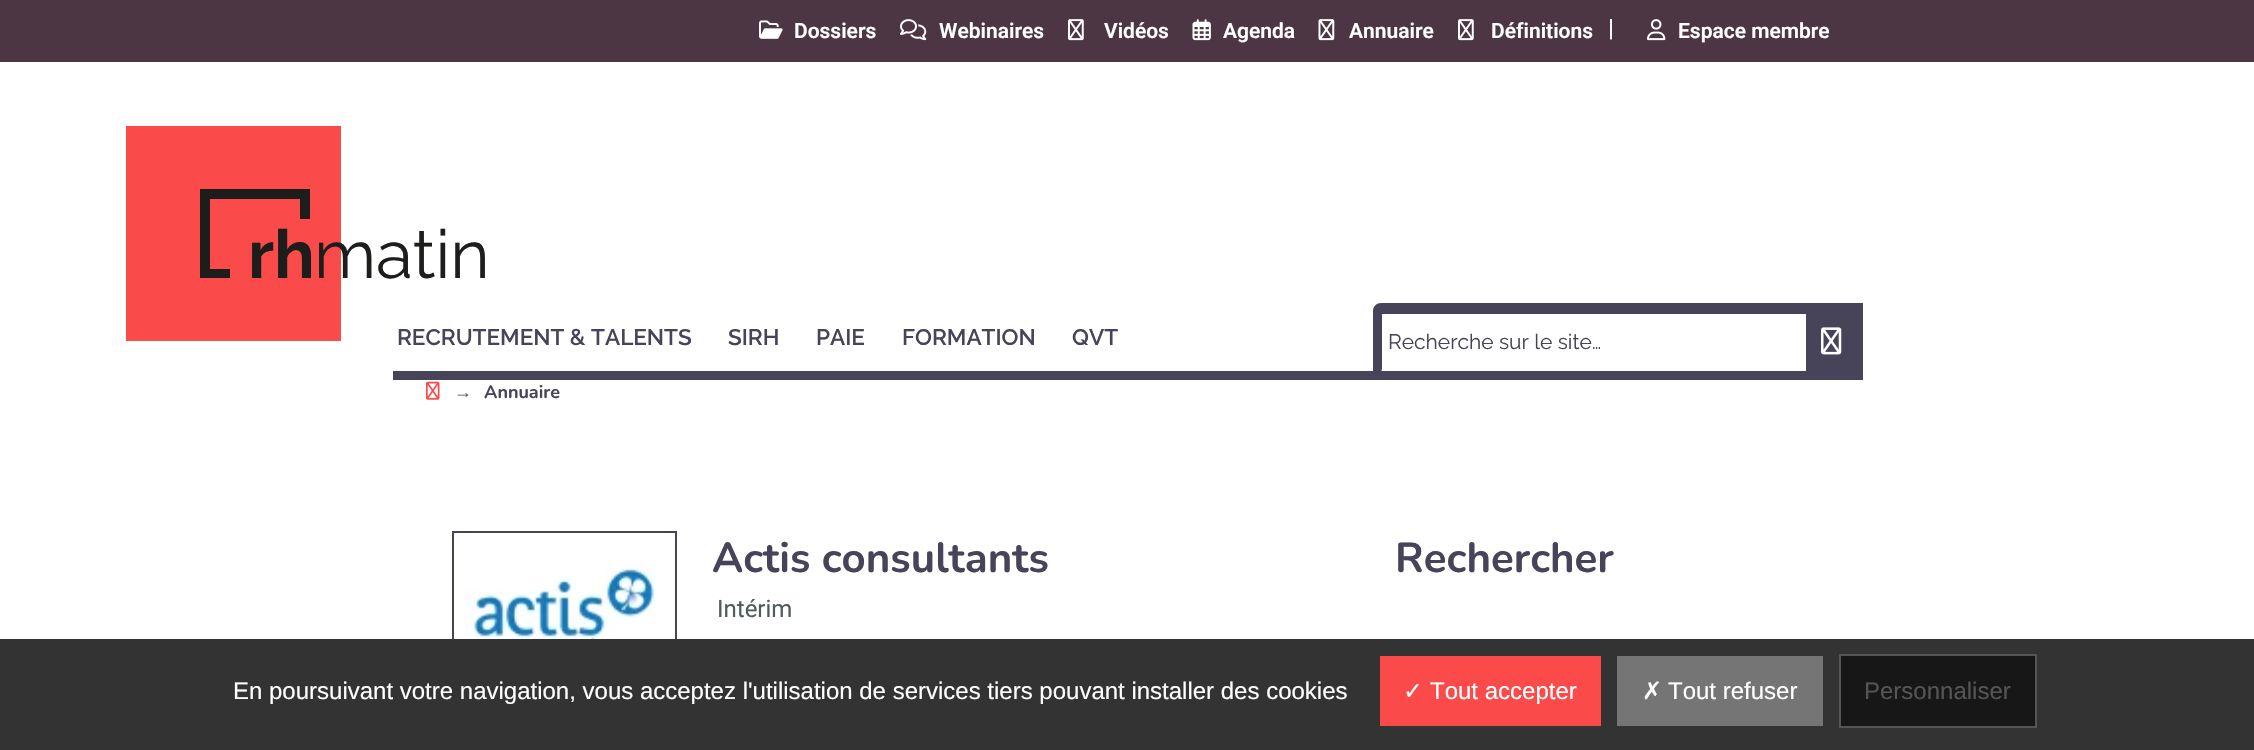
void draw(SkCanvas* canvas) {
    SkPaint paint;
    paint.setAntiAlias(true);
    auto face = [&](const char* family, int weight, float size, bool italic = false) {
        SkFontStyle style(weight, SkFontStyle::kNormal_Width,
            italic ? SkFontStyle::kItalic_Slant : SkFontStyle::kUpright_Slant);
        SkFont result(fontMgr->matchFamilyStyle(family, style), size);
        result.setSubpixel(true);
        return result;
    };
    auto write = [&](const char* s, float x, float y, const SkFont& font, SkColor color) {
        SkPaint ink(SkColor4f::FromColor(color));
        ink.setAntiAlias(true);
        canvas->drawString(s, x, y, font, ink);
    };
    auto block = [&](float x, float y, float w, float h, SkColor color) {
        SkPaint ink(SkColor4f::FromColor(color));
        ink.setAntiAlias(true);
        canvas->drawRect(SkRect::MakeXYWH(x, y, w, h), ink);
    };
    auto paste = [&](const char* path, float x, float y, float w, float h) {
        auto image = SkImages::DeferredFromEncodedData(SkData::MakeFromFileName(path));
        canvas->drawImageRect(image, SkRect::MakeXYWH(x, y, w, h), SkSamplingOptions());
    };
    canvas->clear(SK_ColorWHITE);
    block(0, 0, 2254, 62, SkColorSetRGB(77, 54, 67));
    paste("pic1.png", 759, 20, 24, 19);
    auto kFont1 = face("Roboto", 600, 21);
    write("Dossiers", 794, 38, kFont1, SK_ColorWHITE);
    paste("pic2.png", 900, 19, 27, 22);
    write("Webinaires", 939, 38, kFont1, SK_ColorWHITE);
    paste("pic3.png", 1068, 19, 16, 22);
    write("Vidéos", 1104, 38, kFont1, SK_ColorWHITE);
    paste("pic4.png", 1192, 19, 19, 22);
    write("Agenda", 1223, 38, kFont1, SK_ColorWHITE);
    paste("pic5.png", 1318, 19, 17, 22);
    write("Annuaire", 1349, 38, kFont1, SK_ColorWHITE);
    paste("pic3.png", 1458, 19, 16, 22);
    write("Définitions", 1491, 38, kFont1, SK_ColorWHITE);
    auto kFont2 = face("Roboto", 600, 24);
    write("|", 1608, 36, kFont2, SK_ColorWHITE);
    paste("pic6.png", 1647, 19, 19, 22);
    write("Espace membre", 1678, 38, kFont1, SK_ColorWHITE);
    block(126, 126, 215, 215, SkColorSetRGB(251, 74, 74));
    paint.setColor(SkColorSetRGB(29, 29, 27));
    canvas->drawPath(SkPathBuilder().moveTo(230, 269).lineTo(210, 269).lineTo(210, 199).lineTo(300, 199).lineTo(300, 219).lineTo(310, 219).lineTo(310, 189).lineTo(200, 189).lineTo(200, 278).lineTo(230, 278).close().detach(), paint);
    auto kFont3 = face("Raleway", 100, 67.5f);
    write("rh", 248, 278, kFont3, SkColorSetRGB(29, 29, 27));
    auto kFont4 = face("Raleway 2", 100, 67.5f);
    write("matin", 314, 278, kFont4, SkColorSetRGB(29, 29, 27));
    block(393, 371, 1470, 9, SkColorSetRGB(71, 68, 90));
    auto kFont5 = face("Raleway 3", 100, 22.5f);
    write("RECRUTEMENT & TALENTS", 397, 345, kFont5, SkColorSetRGB(71, 68, 90));
    write("SIRH", 728, 345, kFont5, SkColorSetRGB(71, 68, 90));
    write("PAIE", 816, 345, kFont5, SkColorSetRGB(71, 68, 90));
    write("FORMATION", 902, 345, kFont5, SkColorSetRGB(71, 68, 90));
    write("QVT", 1072, 345, kFont5, SkColorSetRGB(71, 68, 90));
    paint.setColor(SkColorSetRGB(71, 68, 90));
    canvas->drawPath(SkPathBuilder().moveTo(1381, 303).lineTo(1863, 303).lineTo(1863, 371).lineTo(1373, 371).lineTo(1373, 311).cubicTo(1373, 306.5f, 1376.5f, 303, 1381, 303).close().detach(), paint);
    block(1382, 314, 424, 57, SK_ColorWHITE);
    paint.setStyle(SkPaint::kStroke_Style);
    paint.setStrokeWidth(1.5f);
    paint.setColor(SK_ColorWHITE);
    paint.setPathEffect(SkDashPathEffect::Make({{1.5f, 1.5f}}, 0));
    canvas->drawPath(SkPathBuilder().moveTo(1381.5f, 370).lineTo(1806, 370).detach(), paint);
    paint.setPathEffect(nullptr);
    auto kFont6 = face("Raleway 2", 100, 21);
    write("Recherche sur le site…", 1388, 349, kFont6, SkColorSetRGB(71, 68, 90));
    paste("pic7.png", 1821, 327, 21, 28);
    paste("pic8.png", 426, 381, 14, 19);
    auto kFont7 = face("Liberation Sans", 400, 18);
    write("→", 454, 398, kFont7, SkColorSetRGB(81, 92, 93));
    auto kFont8 = face("Nunito", 200, 18);
    write("Annuaire", 484, 398, kFont8, SkColorSetRGB(71, 68, 90));
    paint.setStrokeWidth(2);
    paint.setColor(SkColorSetRGB(71, 68, 90));
    canvas->drawRect(SkRect::MakeXYWH(453, 532, 223, 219), paint);
    paste("pic9.png", 465, 561, 192, 78);
    auto kFont9 = face("Nunito", 200, 42);
    write("Actis consultants", 712, 572, kFont9, SkColorSetRGB(71, 68, 90));
    auto kFont10 = face("Roboto", 400, 24);
    write("Intérim", 717, 617, kFont10, SkColorSetRGB(81, 92, 93));
    write("Rechercher", 1395, 572, kFont9, SkColorSetRGB(71, 68, 90));
    block(0, 639, 2254, 111, SkColorSetRGB(51, 51, 51));
    auto kFont11 = face("Liberation Sans", 400, 24);
    write("En poursuivant votre navigation, vous acceptez l'utilisation de services tiers pouvant installer des cookies", 233, 699, kFont11, SK_ColorWHITE);
    block(1380, 656, 221, 70, SkColorSetRGB(251, 74, 74));
    auto kFont12 = face("DejaVu Sans", 400, 24);
    write("✓", 1403, 699, kFont12, SK_ColorWHITE);
    write("Tout accepter", 1430, 699, kFont11, SK_ColorWHITE);
    block(1617, 656, 206, 70, SkColorSetRGB(117, 117, 117));
    write("✗", 1642, 699, kFont12, SK_ColorWHITE);
    write("Tout refuser", 1668, 699, kFont11, SK_ColorWHITE);
    paint.setStyle(SkPaint::kFill_Style);
    paint.setColor(SkColorSetRGB(23, 23, 23));
    canvas->drawRect(SkRect::MakeXYWH(1840, 655, 196, 72), paint);
    paint.setStyle(SkPaint::kStroke_Style);
    paint.setColor(SkColorSetRGB(85, 85, 85));
    canvas->drawRect(SkRect::MakeXYWH(1840, 655, 196, 72), paint);
    write("Personnaliser", 1864, 699, kFont11, SkColorSetRGB(85, 85, 85));
}
